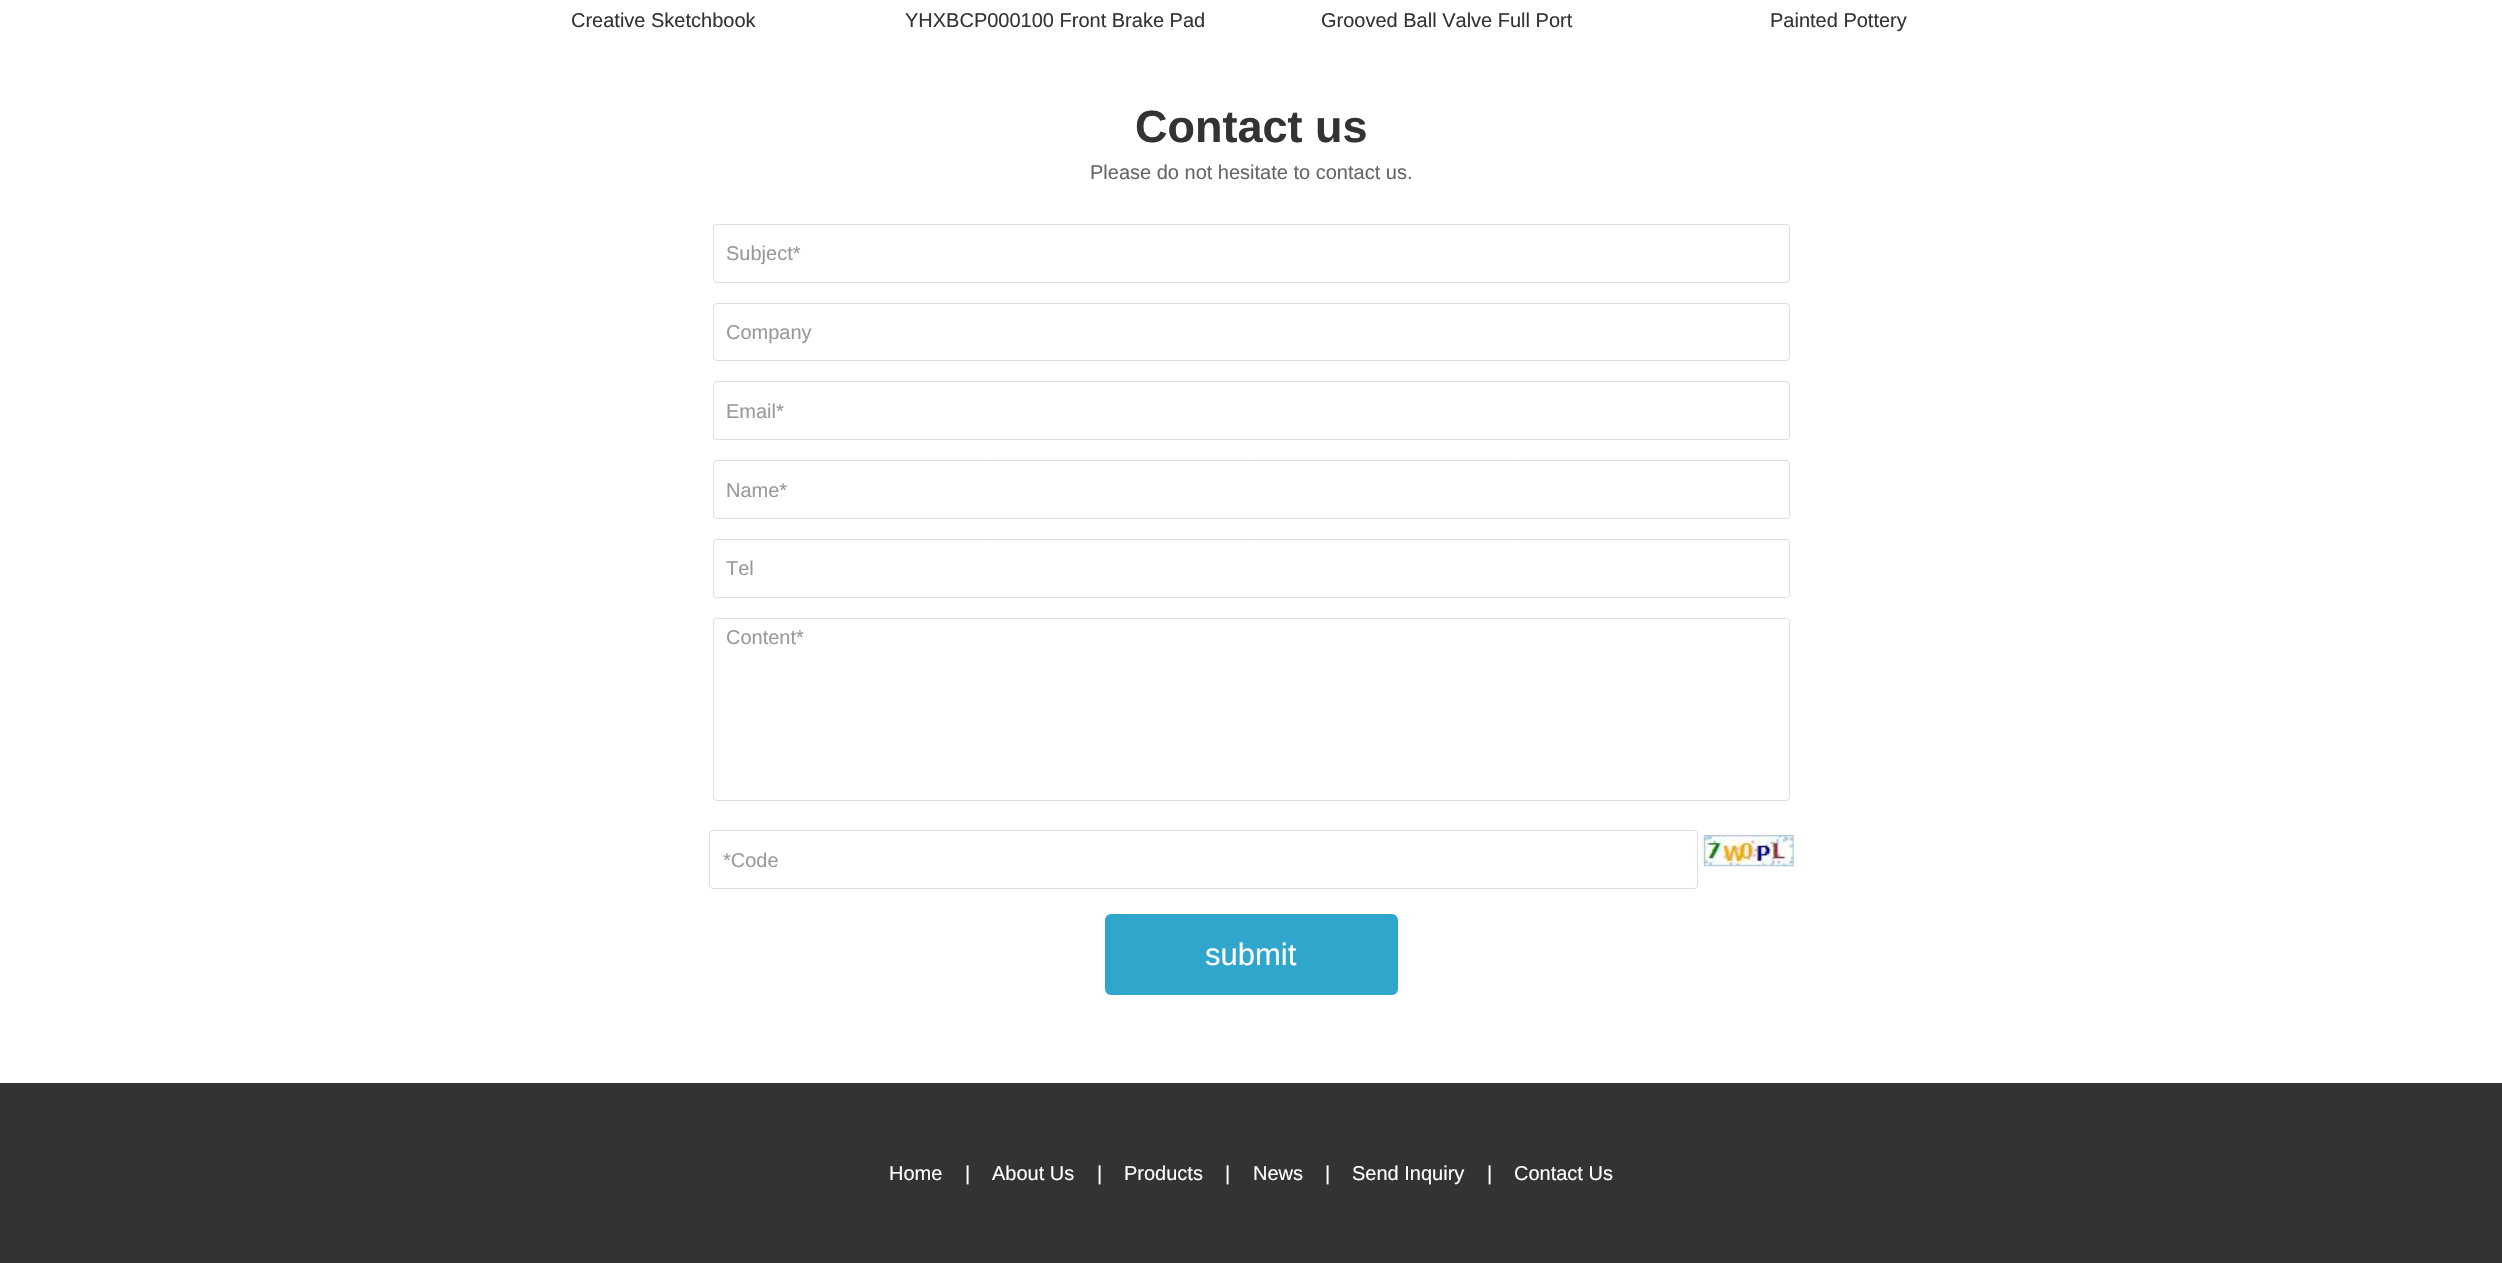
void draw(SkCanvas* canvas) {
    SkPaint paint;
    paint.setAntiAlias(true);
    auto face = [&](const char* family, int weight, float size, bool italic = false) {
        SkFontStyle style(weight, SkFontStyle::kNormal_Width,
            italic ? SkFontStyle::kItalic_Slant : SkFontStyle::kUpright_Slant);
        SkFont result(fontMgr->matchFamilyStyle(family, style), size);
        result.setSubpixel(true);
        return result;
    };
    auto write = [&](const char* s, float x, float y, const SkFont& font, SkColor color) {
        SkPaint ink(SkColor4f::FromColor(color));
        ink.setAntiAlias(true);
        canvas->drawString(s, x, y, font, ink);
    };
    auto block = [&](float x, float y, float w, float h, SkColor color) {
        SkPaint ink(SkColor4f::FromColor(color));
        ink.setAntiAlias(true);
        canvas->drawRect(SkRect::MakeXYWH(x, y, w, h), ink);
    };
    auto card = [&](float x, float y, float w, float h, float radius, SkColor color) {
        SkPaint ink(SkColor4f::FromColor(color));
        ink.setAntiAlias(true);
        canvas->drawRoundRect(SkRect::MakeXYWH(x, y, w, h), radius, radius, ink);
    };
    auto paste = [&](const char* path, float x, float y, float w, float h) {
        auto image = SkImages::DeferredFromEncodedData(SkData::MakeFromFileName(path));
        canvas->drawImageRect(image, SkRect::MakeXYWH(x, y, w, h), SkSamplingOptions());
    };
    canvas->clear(SK_ColorWHITE);
    auto kFont1 = face("Liberation Sans", 400, 20);
    write("Creative Sketchbook", 571, 27, kFont1, SkColorSetRGB(51, 51, 51));
    write("YHXBCP000100 Front Brake Pad", 905, 27, kFont1, SkColorSetRGB(51, 51, 51));
    write("Grooved Ball Valve Full Port", 1321, 27, kFont1, SkColorSetRGB(51, 51, 51));
    write("Painted Pottery", 1770, 27, kFont1, SkColorSetRGB(51, 51, 51));
    auto kFont2 = face("Liberation Sans", 700, 45);
    write("Contact us", 1135, 142, kFont2, SkColorSetRGB(51, 51, 51));
    write("Please do not hesitate to contact us.", 1090, 179, kFont1, SkColorSetRGB(102, 102, 102));
    paint.setStyle(SkPaint::kStroke_Style);
    paint.setStrokeWidth(1);
    paint.setColor(SkColorSetRGB(222, 222, 222));
    canvas->drawRoundRect(SkRect::MakeXYWH(713.5f, 224.5f, 1076, 58), 3.5f, 3.5f, paint);
    write("Subject*", 726, 260, kFont1, SkColorSetRGB(153, 153, 153));
    canvas->drawRoundRect(SkRect::MakeXYWH(713.5f, 303.5f, 1076, 57), 3.5f, 3.5f, paint);
    write("Company", 726, 339, kFont1, SkColorSetRGB(153, 153, 153));
    canvas->drawRoundRect(SkRect::MakeXYWH(713.5f, 381.5f, 1076, 58), 3.5f, 3.5f, paint);
    write("Email*", 726, 418, kFont1, SkColorSetRGB(153, 153, 153));
    canvas->drawRoundRect(SkRect::MakeXYWH(713.5f, 460.5f, 1076, 58), 3.5f, 3.5f, paint);
    write("Name*", 726, 497, kFont1, SkColorSetRGB(153, 153, 153));
    canvas->drawRoundRect(SkRect::MakeXYWH(713.5f, 539.5f, 1076, 58), 3.5f, 3.5f, paint);
    write("Tel", 726, 575, kFont1, SkColorSetRGB(153, 153, 153));
    canvas->drawRoundRect(SkRect::MakeXYWH(713.5f, 618.5f, 1076, 182), 3.5f, 3.5f, paint);
    write("Content*", 726, 644, kFont1, SkColorSetRGB(153, 153, 153));
    canvas->drawRoundRect(SkRect::MakeXYWH(709.5f, 830.5f, 988, 58), 3.5f, 3.5f, paint);
    write("*Code", 723, 867, kFont1, SkColorSetRGB(153, 153, 153));
    paste("pic1.png", 1703, 835, 91, 32);
    card(1105, 914, 293, 81, 6, SkColorSetRGB(49, 166, 204));
    auto kFont3 = face("Liberation Sans", 400, 31);
    write("submit", 1205, 965, kFont3, SK_ColorWHITE);
    block(0, 1083, 2502, 180, SkColorSetRGB(51, 51, 51));
    write("Home", 889, 1180, kFont1, SK_ColorWHITE);
    write("|", 965, 1180, kFont1, SK_ColorWHITE);
    write("About Us", 992, 1180, kFont1, SK_ColorWHITE);
    write("|", 1097, 1180, kFont1, SK_ColorWHITE);
    write("Products", 1124, 1180, kFont1, SK_ColorWHITE);
    write("|", 1225, 1180, kFont1, SK_ColorWHITE);
    write("News", 1253, 1180, kFont1, SK_ColorWHITE);
    write("|", 1325, 1180, kFont1, SK_ColorWHITE);
    write("Send Inquiry", 1352, 1180, kFont1, SK_ColorWHITE);
    write("|", 1487, 1180, kFont1, SK_ColorWHITE);
    write("Contact Us", 1514, 1180, kFont1, SK_ColorWHITE);
}
